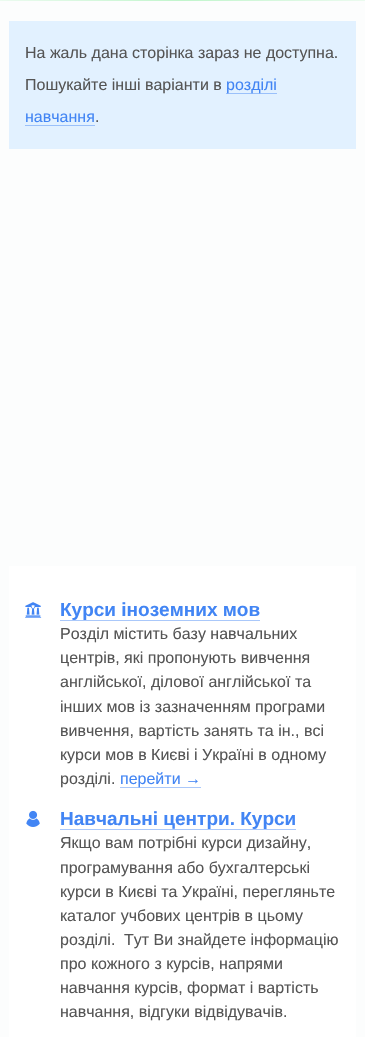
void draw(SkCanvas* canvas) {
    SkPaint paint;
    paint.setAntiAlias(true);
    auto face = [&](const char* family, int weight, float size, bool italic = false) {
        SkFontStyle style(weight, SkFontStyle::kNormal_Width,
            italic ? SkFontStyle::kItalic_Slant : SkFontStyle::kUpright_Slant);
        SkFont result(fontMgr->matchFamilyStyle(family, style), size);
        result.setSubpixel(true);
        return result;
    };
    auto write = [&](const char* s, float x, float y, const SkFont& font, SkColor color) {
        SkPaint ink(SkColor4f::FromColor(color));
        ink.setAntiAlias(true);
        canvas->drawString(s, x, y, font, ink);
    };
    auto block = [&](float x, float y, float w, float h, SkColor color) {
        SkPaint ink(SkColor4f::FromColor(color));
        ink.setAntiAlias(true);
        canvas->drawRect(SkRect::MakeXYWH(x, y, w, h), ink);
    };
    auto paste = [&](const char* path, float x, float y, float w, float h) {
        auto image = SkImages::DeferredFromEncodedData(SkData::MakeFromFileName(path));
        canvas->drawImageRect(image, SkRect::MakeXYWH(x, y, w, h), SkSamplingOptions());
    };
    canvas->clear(SkColorSetRGB(252, 253, 253));
    {
        const SkColor colors[] = {SkColorSetRGB(193, 245, 204), SkColorSetRGB(252, 253, 253)};
        const float stops[] = {0, 0.6f};
        paint.setShader(SkGradientShader::MakeRadial({183, 1}, 428, colors, stops, 2, SkTileMode::kClamp));
        paint.setAlpha(255);
    }
    canvas->drawRect(SkRect::MakeXYWH(0, 0, 365, 1), paint);
    block(9, 21, 347, 128, SkColorSetRGB(226, 241, 255));
    auto kFont1 = face("Liberation Sans", 400, 16);
    write("На жаль дана сторінка зараз не доступна.", 25, 58, kFont1, SkColorSetRGB(85, 85, 85));
    write("Пошукайте інші варіанти в", 25, 90, kFont1, SkColorSetRGB(85, 85, 85));
    block(226, 93, 51, 1, SkColorSetRGB(154, 192, 250));
    write("розділі", 226, 90, kFont1, SkColorSetRGB(66, 133, 244));
    write("навчання", 25, 122, kFont1, SkColorSetRGB(66, 133, 244));
    block(25, 125, 70, 1, SkColorSetRGB(154, 192, 250));
    write(".", 95, 122, kFont1, SkColorSetRGB(85, 85, 85));
    block(9, 566, 347, 471, SK_ColorWHITE);
    paste("pic1.png", 25, 602, 17, 16);
    auto kFont2 = face("Liberation Sans", 700, 19);
    write("Курси іноземних мов", 60, 616, kFont2, SkColorSetRGB(66, 133, 244));
    block(60, 620, 200, 1, SkColorSetRGB(170, 200, 250));
    write("Розділ містить базу навчальних", 60, 639, kFont1, SkColorSetRGB(85, 85, 85));
    write("центрів, які пропонують вивчення", 60, 663, kFont1, SkColorSetRGB(85, 85, 85));
    write("англійської, ділової англійської та", 60, 687, kFont1, SkColorSetRGB(85, 85, 85));
    write("інших мов із зазначенням програми", 60, 712, kFont1, SkColorSetRGB(85, 85, 85));
    write("вивчення, вартість занять та ін., всі", 60, 736, kFont1, SkColorSetRGB(85, 85, 85));
    write("курси мов в Києві і Україні в одному", 60, 760, kFont1, SkColorSetRGB(85, 85, 85));
    write("розділі.", 60, 784, kFont1, SkColorSetRGB(85, 85, 85));
    block(120, 787, 81, 1, SkColorSetRGB(170, 200, 250));
    write("перейти →", 120, 784, kFont1, SkColorSetRGB(66, 133, 244));
    paste("pic2.png", 26, 810, 14, 17);
    write("Навчальні центри. Курси", 60, 825, kFont2, SkColorSetRGB(66, 133, 244));
    block(60, 829, 236, 1, SkColorSetRGB(170, 200, 250));
    write("Якщо вам потрібні курси дизайну,", 60, 848, kFont1, SkColorSetRGB(85, 85, 85));
    write("програмування або бухгалтерські", 60, 873, kFont1, SkColorSetRGB(85, 85, 85));
    write("курси в Києві та Україні, перегляньте", 60, 897, kFont1, SkColorSetRGB(85, 85, 85));
    write("каталог учбових центрів в цьому", 60, 921, kFont1, SkColorSetRGB(85, 85, 85));
    write("розділі.", 60, 945, kFont1, SkColorSetRGB(85, 85, 85));
    write("Тут Ви знайдете інформацію", 124, 945, kFont1, SkColorSetRGB(85, 85, 85));
    write("про кожного з курсів, напрями", 60, 969, kFont1, SkColorSetRGB(85, 85, 85));
    write("навчання курсів, формат і вартість", 60, 993, kFont1, SkColorSetRGB(85, 85, 85));
    write("навчання, відгуки відвідувачів.", 60, 1017, kFont1, SkColorSetRGB(85, 85, 85));
}
